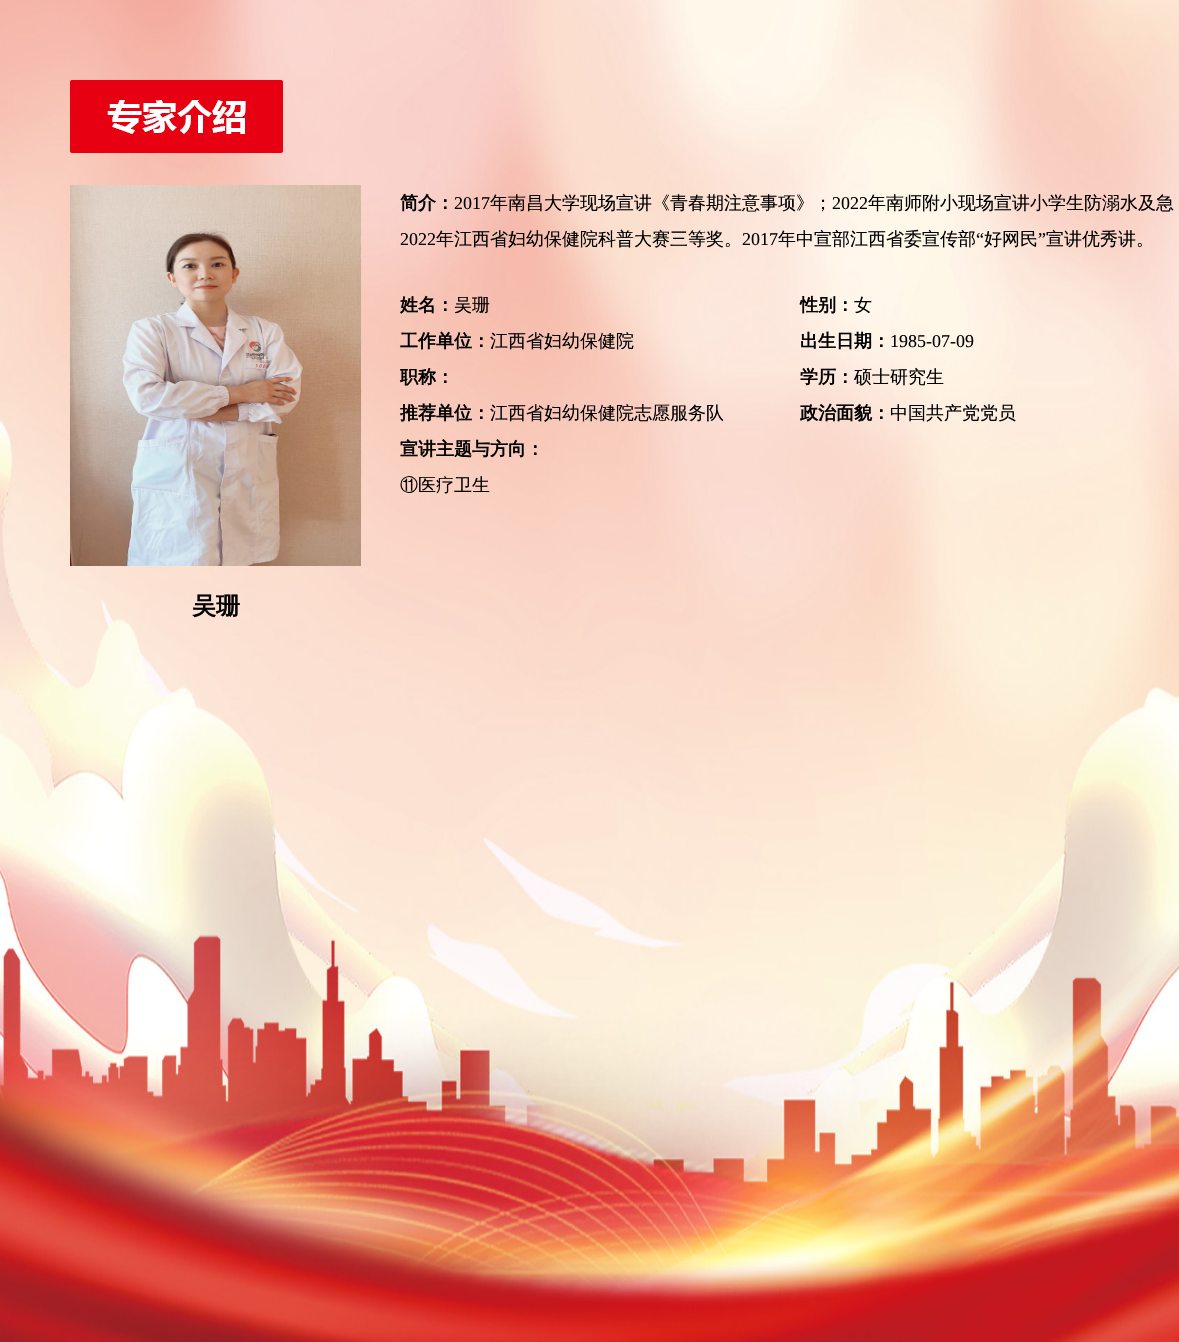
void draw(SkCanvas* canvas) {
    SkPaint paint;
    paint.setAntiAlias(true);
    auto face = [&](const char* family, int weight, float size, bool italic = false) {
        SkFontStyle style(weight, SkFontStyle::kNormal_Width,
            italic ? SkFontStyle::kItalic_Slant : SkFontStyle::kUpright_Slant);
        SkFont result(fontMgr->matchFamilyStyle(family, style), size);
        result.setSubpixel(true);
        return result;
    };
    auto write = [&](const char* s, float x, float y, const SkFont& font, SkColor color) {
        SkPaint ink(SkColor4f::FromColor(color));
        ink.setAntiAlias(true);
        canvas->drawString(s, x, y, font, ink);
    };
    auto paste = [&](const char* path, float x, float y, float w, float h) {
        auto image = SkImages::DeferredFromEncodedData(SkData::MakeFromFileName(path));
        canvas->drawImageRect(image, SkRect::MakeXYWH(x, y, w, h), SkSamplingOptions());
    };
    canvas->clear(SK_ColorWHITE);
    paste("pic1.png", 0, 0, 1179, 1342);
    paste("pic2.png", 70, 80, 213, 73);
    auto kFont1 = face("WenQuanYi Zen Hei", 700, 18);
    write("简介：", 400, 209, kFont1, SK_ColorBLACK);
    auto kFont2 = face("Liberation Serif", 400, 18);
    write("2017", 454, 209, kFont2, SK_ColorBLACK);
    auto kFont3 = face("WenQuanYi Zen Hei", 500, 18);
    write("年南昌大学现场宣讲《青春期注意事项》；", 490, 209, kFont3, SK_ColorBLACK);
    write("2022", 832, 209, kFont2, SK_ColorBLACK);
    write("年南师附小现场宣讲小学生防溺水及急", 868, 209, kFont3, SK_ColorBLACK);
    write("2022", 400, 245, kFont2, SK_ColorBLACK);
    write("年江西省妇幼保健院科普大赛三等奖。", 436, 245, kFont3, SK_ColorBLACK);
    write("2017", 742, 245, kFont2, SK_ColorBLACK);
    write("年中宣部江西省委宣传部", 778, 245, kFont3, SK_ColorBLACK);
    write("“", 976, 245, kFont2, SK_ColorBLACK);
    write("好网民", 984, 245, kFont3, SK_ColorBLACK);
    write("”", 1038, 245, kFont2, SK_ColorBLACK);
    write("宣讲优秀讲。", 1046, 245, kFont3, SK_ColorBLACK);
    write("姓名：", 400, 311, kFont1, SK_ColorBLACK);
    write("吴珊", 454, 311, kFont3, SK_ColorBLACK);
    write("工作单位：", 400, 347, kFont1, SK_ColorBLACK);
    write("江西省妇幼保健院", 490, 347, kFont3, SK_ColorBLACK);
    write("职称：", 400, 383, kFont1, SK_ColorBLACK);
    write("推荐单位：", 400, 419, kFont1, SK_ColorBLACK);
    write("江西省妇幼保健院志愿服务队", 490, 419, kFont3, SK_ColorBLACK);
    write("宣讲主题与方向：", 400, 455, kFont1, SK_ColorBLACK);
    write("⑪医疗卫生", 400, 491, kFont3, SK_ColorBLACK);
    write("性别：", 800, 311, kFont1, SK_ColorBLACK);
    write("女", 854, 311, kFont3, SK_ColorBLACK);
    write("出生日期：", 800, 347, kFont1, SK_ColorBLACK);
    write("1985-07-09", 890, 347, kFont2, SK_ColorBLACK);
    write("学历：", 800, 383, kFont1, SK_ColorBLACK);
    write("硕士研究生", 854, 383, kFont3, SK_ColorBLACK);
    write("政治面貌：", 800, 419, kFont1, SK_ColorBLACK);
    write("中国共产党党员", 890, 419, kFont3, SK_ColorBLACK);
    paste("pic3.png", 70, 185, 291, 381);
    auto kFont4 = face("WenQuanYi Zen Hei", 700, 24);
    write("吴珊", 192, 614, kFont4, SK_ColorBLACK);
}
